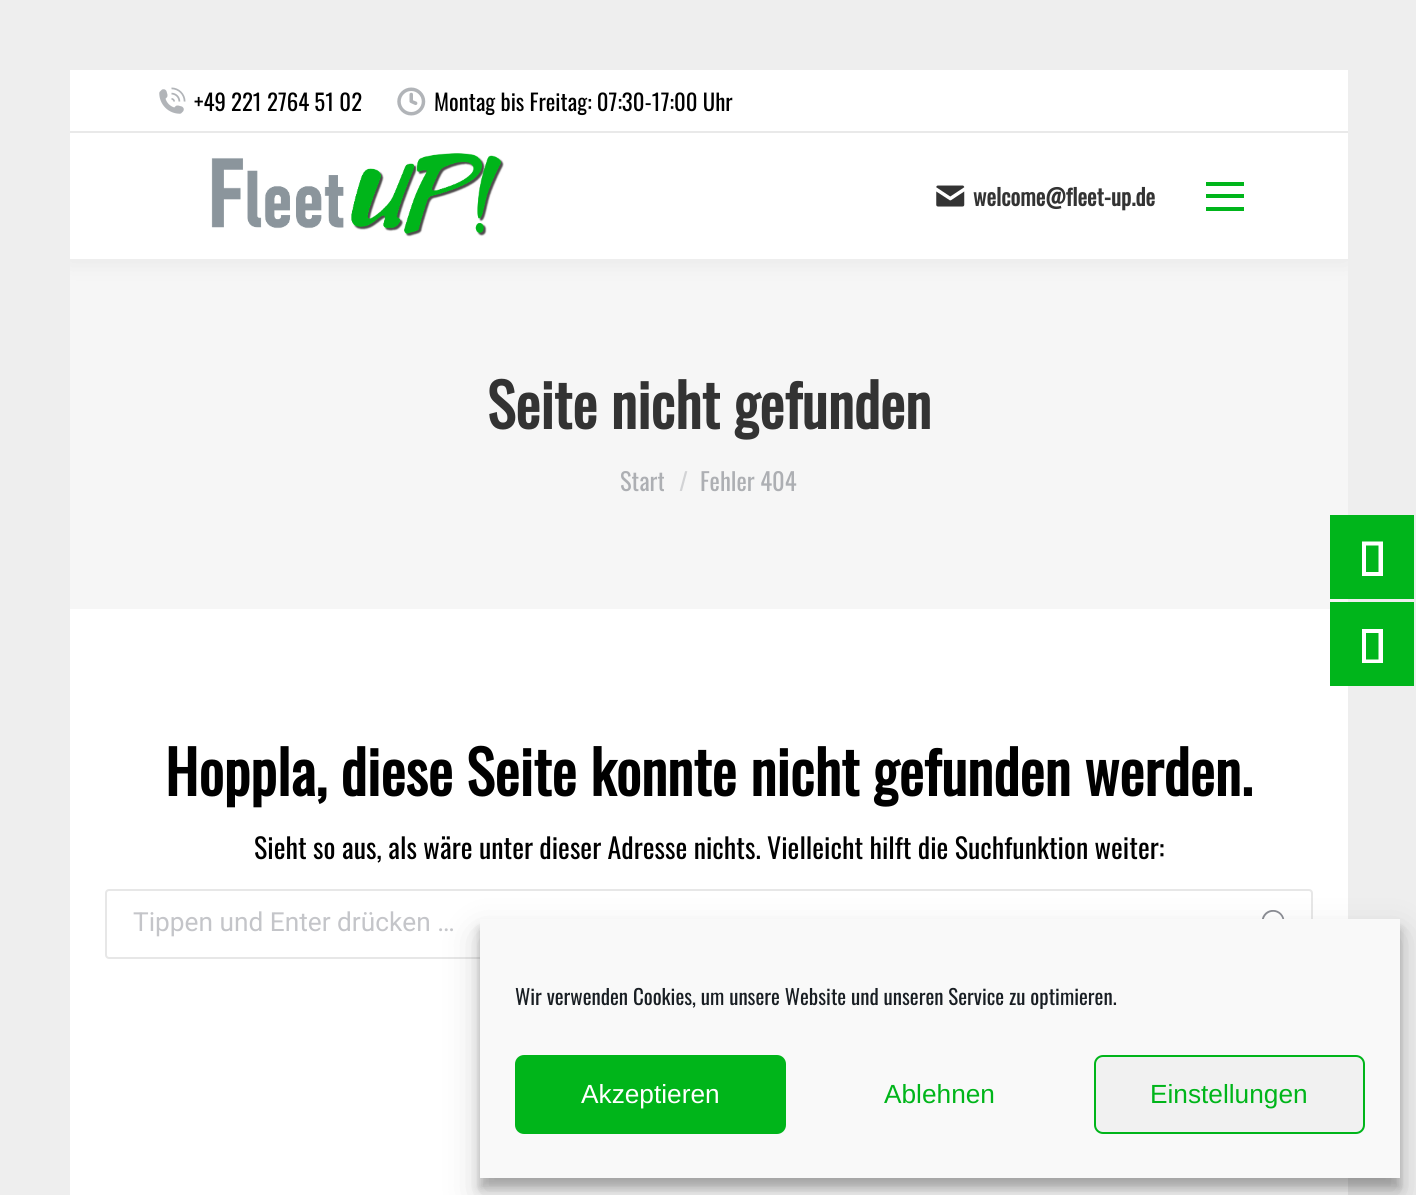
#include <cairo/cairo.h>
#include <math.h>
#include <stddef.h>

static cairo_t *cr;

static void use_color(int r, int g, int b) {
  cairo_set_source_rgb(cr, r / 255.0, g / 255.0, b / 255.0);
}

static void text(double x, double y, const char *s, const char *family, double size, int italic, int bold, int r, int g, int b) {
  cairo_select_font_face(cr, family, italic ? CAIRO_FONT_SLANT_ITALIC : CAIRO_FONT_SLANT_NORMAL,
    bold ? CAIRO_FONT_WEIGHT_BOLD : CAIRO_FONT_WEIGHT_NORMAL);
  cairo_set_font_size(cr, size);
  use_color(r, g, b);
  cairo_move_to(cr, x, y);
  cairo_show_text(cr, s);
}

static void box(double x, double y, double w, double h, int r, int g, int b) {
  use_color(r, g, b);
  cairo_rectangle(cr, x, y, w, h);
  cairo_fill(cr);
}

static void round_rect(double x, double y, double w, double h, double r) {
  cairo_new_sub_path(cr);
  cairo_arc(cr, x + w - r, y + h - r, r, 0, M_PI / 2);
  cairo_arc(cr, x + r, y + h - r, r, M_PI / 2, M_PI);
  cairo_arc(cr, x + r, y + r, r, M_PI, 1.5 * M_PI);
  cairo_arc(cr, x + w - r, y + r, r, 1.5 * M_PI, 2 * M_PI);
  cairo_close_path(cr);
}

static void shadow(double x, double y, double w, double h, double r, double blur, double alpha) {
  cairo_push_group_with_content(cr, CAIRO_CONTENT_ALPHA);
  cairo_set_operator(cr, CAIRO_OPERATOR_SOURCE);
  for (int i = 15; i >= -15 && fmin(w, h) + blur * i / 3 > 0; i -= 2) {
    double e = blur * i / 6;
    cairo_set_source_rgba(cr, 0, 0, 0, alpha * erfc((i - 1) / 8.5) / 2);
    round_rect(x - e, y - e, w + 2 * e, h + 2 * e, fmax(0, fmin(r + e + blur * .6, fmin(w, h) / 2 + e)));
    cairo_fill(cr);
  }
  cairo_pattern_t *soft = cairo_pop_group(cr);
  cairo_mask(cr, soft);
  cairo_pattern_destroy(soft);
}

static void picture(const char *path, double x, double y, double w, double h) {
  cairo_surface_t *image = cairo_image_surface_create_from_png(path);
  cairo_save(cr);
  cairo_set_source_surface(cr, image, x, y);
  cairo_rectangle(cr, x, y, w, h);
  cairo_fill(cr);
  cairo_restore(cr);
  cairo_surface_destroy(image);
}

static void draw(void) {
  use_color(238, 238, 238);
  cairo_paint(cr);
  box(70, 609, 1278, 586, 255, 255, 255);
  box(70, 259, 1278, 350, 246, 246, 246);
  cairo_save(cr);
  cairo_rectangle(cr, 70, 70, 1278, 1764);
  cairo_clip(cr);
  use_color(0, 0, 0);
  shadow(68, 68, 1281, 193, 0, 13, 0.07);
  cairo_restore(cr);
  box(70, 70, 1278, 189, 255, 255, 255);
  picture("img_01.png", 159, 87, 27, 27);
  picture("img_02.png", 397, 87, 29, 29);
  box(70, 131, 1278, 2, 233, 233, 233);
  picture("img_03.png", 211, 153, 293, 84);
  picture("img_04.png", 936, 185, 29, 22);
  box(1206, 182, 38, 4, 0, 181, 27);
  box(1206, 194, 38, 4, 0, 181, 27);
  box(1206, 207, 38, 4, 0, 181, 27);
  round_rect(106, 890, 1206, 68, 3);
  use_color(231, 231, 231);
  cairo_stroke(cr);
  picture("img_05.png", 1262, 910, 23, 9);
  box(1330, 515, 84, 84, 0, 181, 27);
  use_color(255, 255, 255);
  cairo_new_path(cr);
  cairo_move_to(cr, 1362, 541.5);
  cairo_line_to(cr, 1383, 541.5);
  cairo_line_to(cr, 1383, 576);
  cairo_line_to(cr, 1362, 576);
  cairo_close_path(cr);
  cairo_move_to(cr, 1378.5, 572);
  cairo_line_to(cr, 1378.5, 545.5);
  cairo_line_to(cr, 1366, 545.5);
  cairo_line_to(cr, 1366, 572);
  cairo_close_path(cr);
  cairo_fill(cr);
  box(1330, 602, 84, 84, 0, 181, 27);
  use_color(255, 255, 255);
  cairo_new_path(cr);
  cairo_move_to(cr, 1362, 629);
  cairo_line_to(cr, 1383, 629);
  cairo_line_to(cr, 1383, 663);
  cairo_line_to(cr, 1362, 663);
  cairo_close_path(cr);
  cairo_move_to(cr, 1378.5, 659.5);
  cairo_line_to(cr, 1378.5, 633);
  cairo_line_to(cr, 1366, 633);
  cairo_line_to(cr, 1366, 659.5);
  cairo_close_path(cr);
  cairo_fill(cr);
  use_color(0, 0, 0);
  shadow(480, 929, 920, 259, 0, 5, 0.23);
  shadow(480, 936, 920, 259, 0, 17.5, 0.19);
  box(480, 919, 920, 259, 249, 249, 249);
  use_color(0, 181, 26);
  round_rect(516, 1056, 269, 77, 8);
  cairo_fill_preserve(cr);
  cairo_stroke(cr);
  use_color(241, 241, 241);
  round_rect(1095, 1056, 269, 77, 8);
  cairo_fill_preserve(cr);
  use_color(0, 181, 26);
  cairo_stroke(cr);
  text(194, 111, "+49 221 2764 51 02", "Oswald", 22.75, 0, 0, 0, 0, 0);
  text(434, 111, "Montag bis Freitag: 07:30-17:00 Uhr", "Oswald", 22.75, 0, 0, 0, 0, 0);
  text(973, 206, "welcome@fleet-up.de", "Oswald", 22.75, 0, 1, 51, 51, 51);
  text(487, 429, "Seite nicht gefunden", "Oswald", 59.5, 0, 1, 51, 51, 51);
  text(620, 491, "Start", "Oswald", 24.5, 0, 0, 173, 175, 179);
  text(679, 491, "/", "Oswald", 24.5, 0, 0, 210, 211, 213);
  text(700, 491, "Fehler 404", "Oswald", 24.5, 0, 0, 173, 175, 179);
  text(165, 796, "Hoppla, diese Seite konnte nicht gefunden werden.", "Oswald", 59.5, 0, 1, 0, 0, 0);
  text(254, 859, "Sieht so aus, als wäre unter dieser Adresse nichts. Vielleicht hilft die Suchfunktion weiter:", "Oswald", 28, 0, 0, 0, 0, 0);
  text(133, 931, "Tippen und Enter drücken …", "Roboto", 26.25, 0, 0, 196, 197, 201);
  text(515, 1005, "Wir verwenden Cookies, um unsere Website und unseren Service zu optimieren.", "Oswald", 21, 0, 0, 25, 30, 35);
  text(581, 1103, "Akzeptieren", "Liberation Sans", 26.25, 0, 0, 255, 255, 255);
  text(884, 1103, "Ablehnen", "Liberation Sans", 26.25, 0, 0, 0, 181, 26);
  text(1150, 1103, "Einstellungen", "Liberation Sans", 26.25, 0, 0, 0, 181, 26);
}

int main(void) {
  cairo_surface_t *surface = cairo_image_surface_create(CAIRO_FORMAT_RGB24, 1416, 1195);
  cr = cairo_create(surface);
  cairo_font_options_t *options = cairo_font_options_create();
  cairo_font_options_set_hint_metrics(options, CAIRO_HINT_METRICS_OFF);
  cairo_font_options_set_hint_style(options, CAIRO_HINT_STYLE_NONE);
  cairo_set_font_options(cr, options);
  cairo_set_miter_limit(cr, 4);
  draw();
  cairo_surface_write_to_png(surface, "out.png");
  cairo_font_options_destroy(options);
  cairo_destroy(cr);
  cairo_surface_destroy(surface);
  return 0;
}
